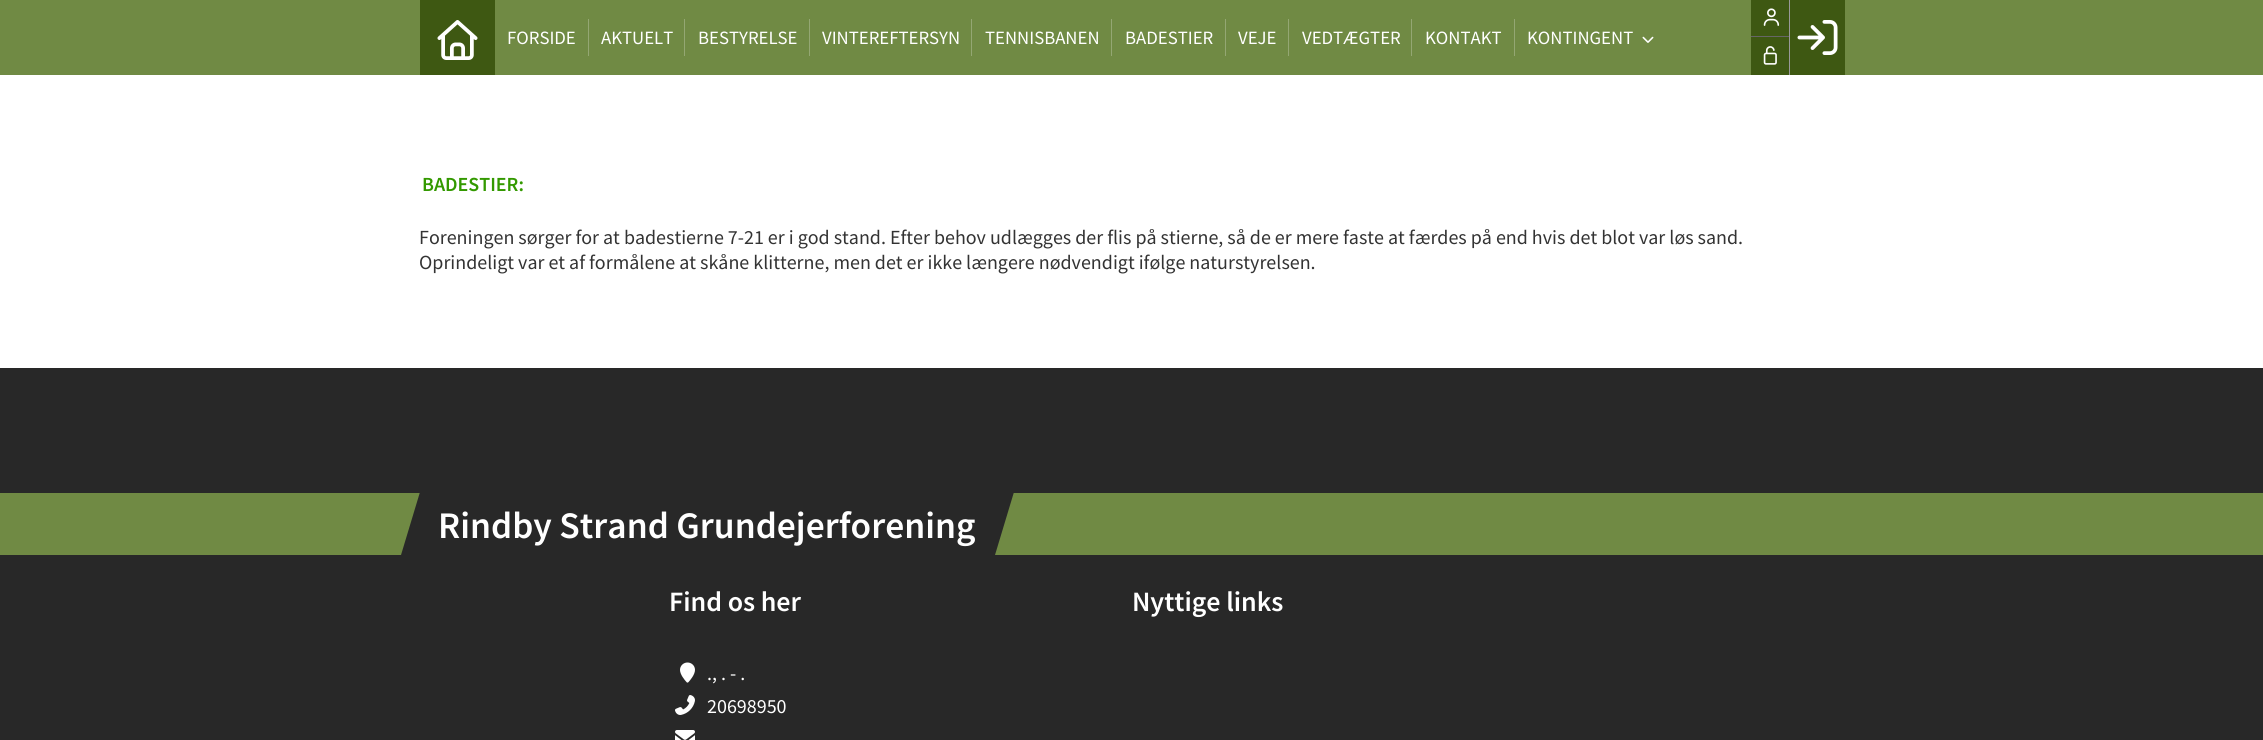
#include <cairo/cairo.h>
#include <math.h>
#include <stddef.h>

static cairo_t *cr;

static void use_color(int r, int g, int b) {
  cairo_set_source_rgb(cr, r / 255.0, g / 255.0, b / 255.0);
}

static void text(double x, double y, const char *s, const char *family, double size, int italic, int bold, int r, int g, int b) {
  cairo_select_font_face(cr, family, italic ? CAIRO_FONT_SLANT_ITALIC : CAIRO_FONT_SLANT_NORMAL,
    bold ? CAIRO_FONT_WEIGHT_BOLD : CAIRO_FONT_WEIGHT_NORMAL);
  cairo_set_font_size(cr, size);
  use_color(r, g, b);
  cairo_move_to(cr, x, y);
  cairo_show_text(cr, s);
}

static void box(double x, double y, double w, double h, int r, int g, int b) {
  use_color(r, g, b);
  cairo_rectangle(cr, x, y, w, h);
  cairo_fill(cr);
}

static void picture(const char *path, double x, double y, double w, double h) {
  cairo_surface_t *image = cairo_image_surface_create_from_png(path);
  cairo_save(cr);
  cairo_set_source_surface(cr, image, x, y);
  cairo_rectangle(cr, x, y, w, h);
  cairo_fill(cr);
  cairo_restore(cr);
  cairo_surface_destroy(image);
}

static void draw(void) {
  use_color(255, 255, 255);
  cairo_paint(cr);
  box(0, 0, 2263, 75, 112, 138, 68);
  box(420, 0, 75, 75, 62, 88, 18);
  picture("img_01.png", 437, 20, 41, 40);
  box(588, 19, 1, 37, 148, 167, 115);
  box(684, 19, 1, 37, 148, 167, 115);
  box(809, 19, 1, 37, 148, 167, 115);
  box(971, 19, 1, 37, 148, 167, 115);
  box(1111, 19, 1, 37, 148, 167, 115);
  box(1225, 19, 1, 37, 148, 167, 115);
  box(1288, 19, 1, 37, 148, 167, 115);
  box(1411, 19, 1, 37, 148, 167, 115);
  box(1514, 19, 1, 37, 148, 167, 115);
  picture("img_02.png", 1642, 36, 12, 7);
  box(1751, 0, 38, 75, 62, 88, 18);
  box(1751, 36, 38, 1, 102, 102, 102);
  picture("img_03.png", 1763, 8, 17, 18);
  picture("img_04.png", 1763, 46, 14, 19);
  box(1790, 0, 55, 75, 62, 88, 18);
  box(1789, 0, 1, 75, 153, 153, 153);
  picture("img_05.png", 1797, 20, 41, 35);
  box(0, 368, 2263, 372, 40, 40, 40);
  box(0, 493, 2263, 62, 112, 138, 68);
  box(420, 493, 575, 62, 40, 40, 40);
  cairo_new_path(cr);
  cairo_move_to(cr, 420, 492);
  cairo_line_to(cr, 420, 555);
  cairo_line_to(cr, 401, 555);
  cairo_close_path(cr);
  cairo_fill(cr);
  cairo_new_path(cr);
  cairo_move_to(cr, 995, 555);
  cairo_line_to(cr, 995, 492);
  cairo_line_to(cr, 1014, 492);
  cairo_close_path(cr);
  cairo_fill(cr);
  picture("img_06.png", 680, 662, 15, 21);
  picture("img_07.png", 675, 695, 20, 20);
  picture("img_08.png", 675, 730, 20, 10);
  text(507, 44, "FORSIDE", "Source Sans Pro", 18.75, 0, 0, 255, 255, 255);
  text(601, 44, "AKTUELT", "Source Sans Pro", 18.75, 0, 0, 255, 255, 255);
  text(698, 44, "BESTYRELSE", "Source Sans Pro", 18.75, 0, 0, 255, 255, 255);
  text(822, 44, "VINTEREFTERSYN", "Source Sans Pro", 18.75, 0, 0, 255, 255, 255);
  text(985, 44, "TENNISBANEN", "Source Sans Pro", 18.75, 0, 0, 255, 255, 255);
  text(1125, 44, "BADESTIER", "Source Sans Pro", 18.75, 0, 0, 255, 255, 255);
  text(1238, 44, "VEJE", "Source Sans Pro", 18.75, 0, 0, 255, 255, 255);
  text(1302, 44, "VEDTÆGTER", "Source Sans Pro", 18.75, 0, 0, 255, 255, 255);
  text(1425, 44, "KONTAKT", "Source Sans Pro", 18.75, 0, 0, 255, 255, 255);
  text(1527, 44, "KONTINGENT", "Source Sans Pro", 18.75, 0, 0, 255, 255, 255);
  text(422, 191, "BADESTIER:", "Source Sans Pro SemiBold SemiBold", 20, 0, 0, 51, 153, 0);
  text(419, 244, "Foreningen sørger for at badestierne 7-21 er i god stand. Efter behov udlægges der flis på stierne, så de er mere faste at færdes på end hvis det blot var løs sand.", "Source Sans Pro", 20, 0, 0, 51, 51, 51);
  text(419, 269, "Oprindeligt var et af formålene at skåne klitterne, men det er ikke længere nødvendigt ifølge naturstyrelsen.", "Source Sans Pro", 20, 0, 0, 51, 51, 51);
  text(438, 538, "Rindby Strand Grundejerforening", "Source Sans Pro SemiBold SemiBold", 37.5, 0, 0, 255, 255, 255);
  text(669, 611, "Find os her", "Source Sans Pro SemiBold SemiBold", 28, 0, 0, 255, 255, 255);
  text(707, 680, "., . - .", "Source Sans Pro", 20, 0, 0, 255, 255, 255);
  text(707, 713, "20698950", "Source Sans Pro", 20, 0, 0, 255, 255, 255);
  text(1132, 611, "Nyttige links", "Source Sans Pro SemiBold SemiBold", 28, 0, 0, 255, 255, 255);
}

int main(void) {
  cairo_surface_t *surface = cairo_image_surface_create(CAIRO_FORMAT_RGB24, 2263, 740);
  cr = cairo_create(surface);
  cairo_font_options_t *options = cairo_font_options_create();
  cairo_font_options_set_hint_metrics(options, CAIRO_HINT_METRICS_OFF);
  cairo_font_options_set_hint_style(options, CAIRO_HINT_STYLE_NONE);
  cairo_set_font_options(cr, options);
  cairo_set_miter_limit(cr, 4);
  draw();
  cairo_surface_write_to_png(surface, "out.png");
  cairo_font_options_destroy(options);
  cairo_destroy(cr);
  cairo_surface_destroy(surface);
  return 0;
}
